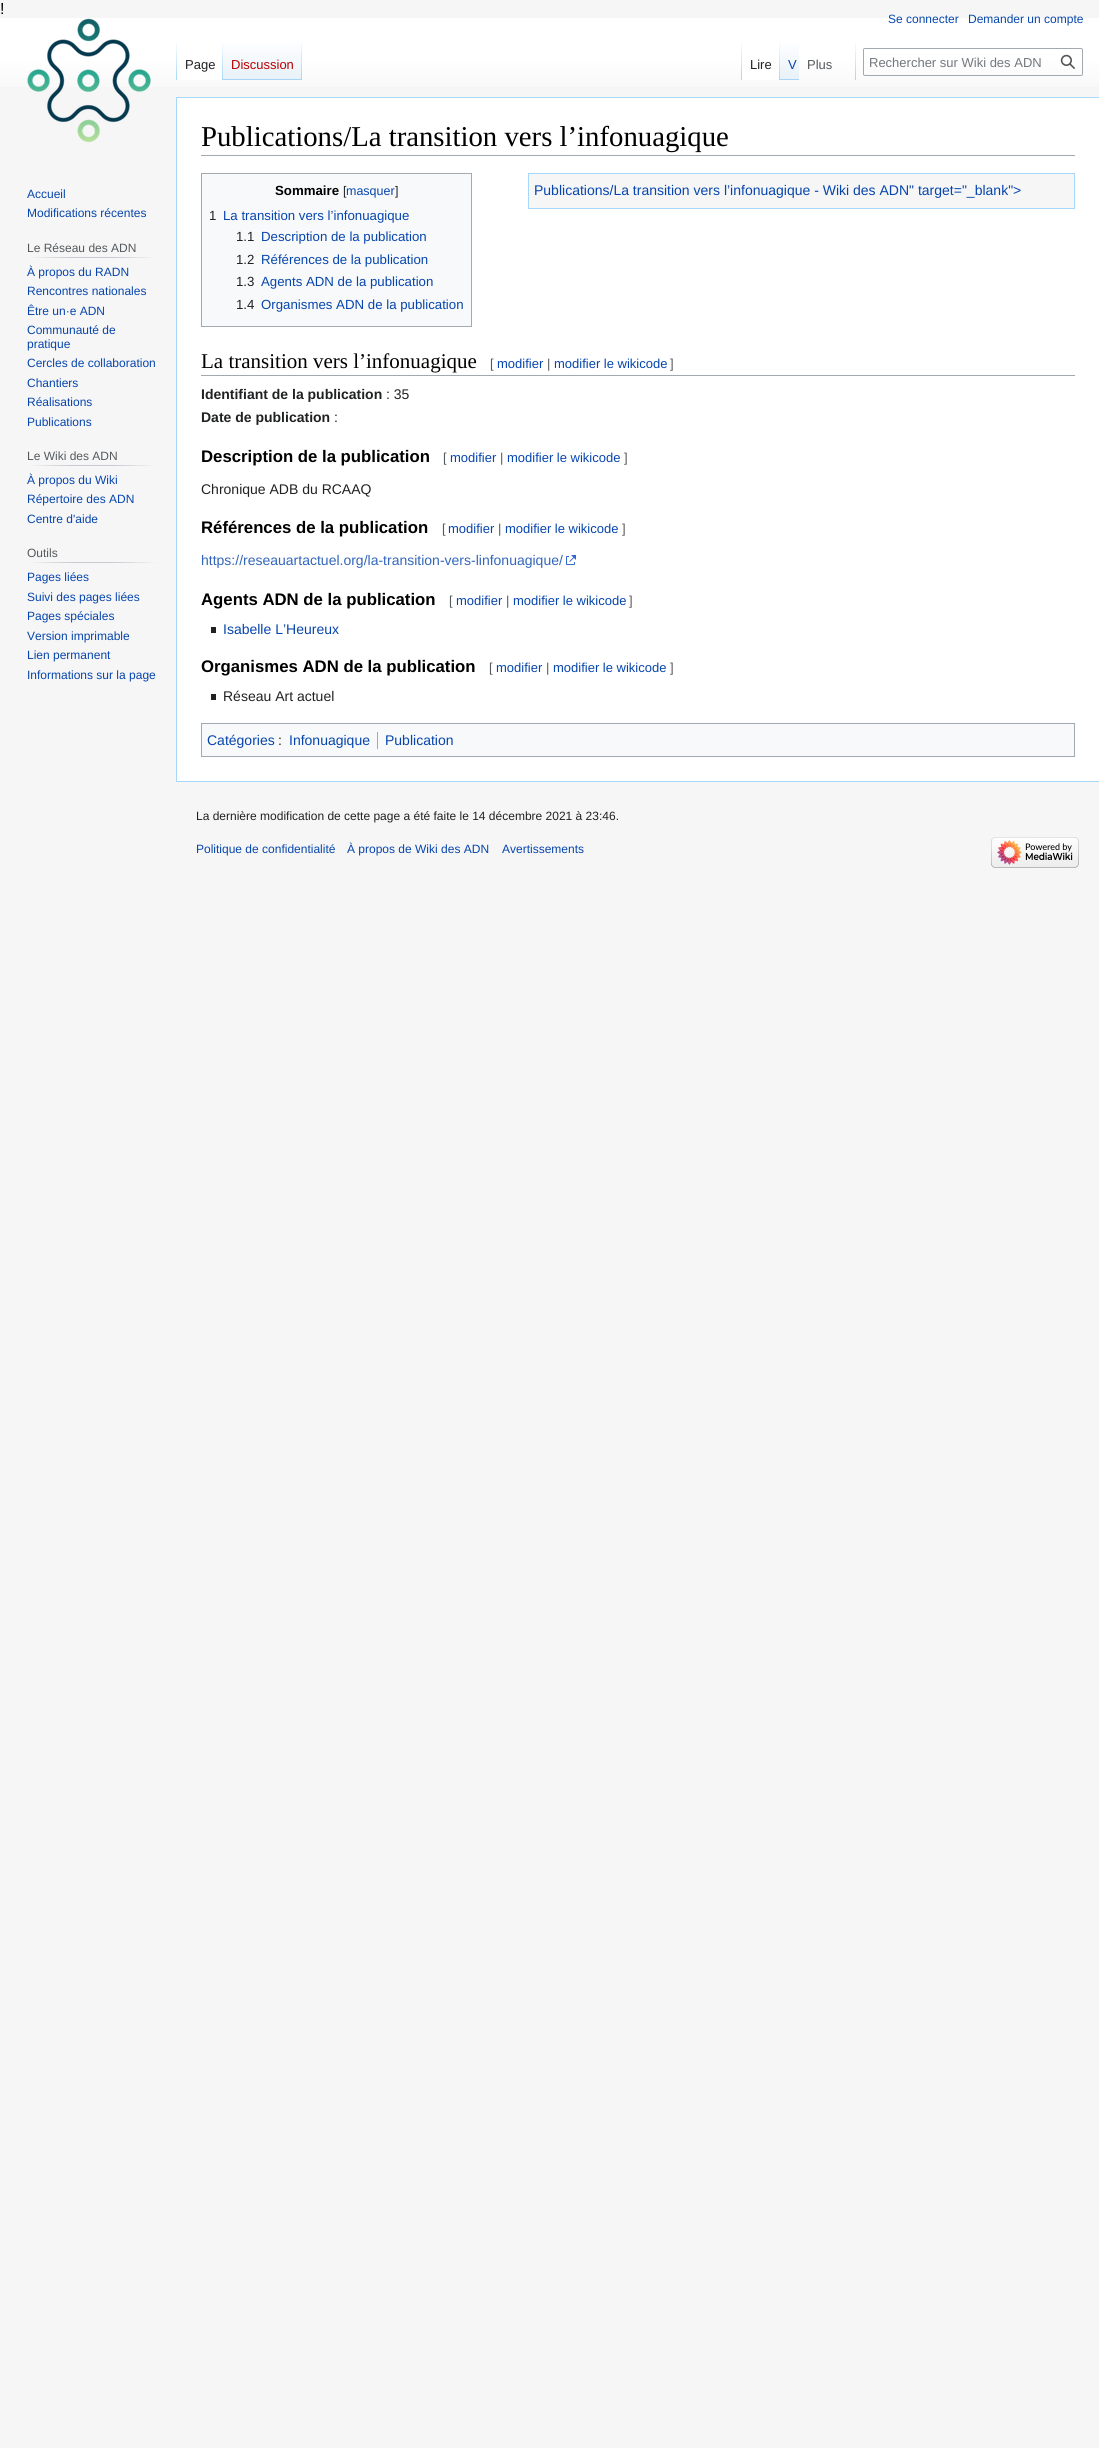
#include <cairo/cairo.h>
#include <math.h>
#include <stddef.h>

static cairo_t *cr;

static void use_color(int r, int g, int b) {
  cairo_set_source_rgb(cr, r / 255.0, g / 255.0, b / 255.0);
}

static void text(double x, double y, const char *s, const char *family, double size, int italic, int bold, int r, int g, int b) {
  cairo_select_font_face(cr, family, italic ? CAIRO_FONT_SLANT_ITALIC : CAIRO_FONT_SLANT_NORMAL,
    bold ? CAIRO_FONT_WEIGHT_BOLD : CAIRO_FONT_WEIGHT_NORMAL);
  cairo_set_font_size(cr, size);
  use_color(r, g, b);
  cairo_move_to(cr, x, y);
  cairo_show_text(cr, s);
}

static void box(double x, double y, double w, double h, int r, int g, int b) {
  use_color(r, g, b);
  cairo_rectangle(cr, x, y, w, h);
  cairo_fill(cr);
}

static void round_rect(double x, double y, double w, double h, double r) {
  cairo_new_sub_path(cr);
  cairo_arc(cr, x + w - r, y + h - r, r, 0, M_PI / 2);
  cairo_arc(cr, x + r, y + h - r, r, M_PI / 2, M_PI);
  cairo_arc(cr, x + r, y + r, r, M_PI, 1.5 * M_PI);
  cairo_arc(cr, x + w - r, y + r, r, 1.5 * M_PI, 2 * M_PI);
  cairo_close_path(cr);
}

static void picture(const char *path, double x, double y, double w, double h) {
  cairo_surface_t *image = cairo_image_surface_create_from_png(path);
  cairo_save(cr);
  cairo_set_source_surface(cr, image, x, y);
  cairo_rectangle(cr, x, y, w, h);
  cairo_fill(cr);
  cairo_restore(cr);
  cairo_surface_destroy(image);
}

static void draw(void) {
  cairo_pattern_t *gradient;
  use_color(246, 246, 246);
  cairo_paint(cr);
  gradient = cairo_pattern_create_linear(550, 18, 550, 98);
  cairo_pattern_add_color_stop_rgba(gradient, 0.5, 1, 1, 1, 1);
  cairo_pattern_add_color_stop_rgba(gradient, 1, 0.965, 0.965, 0.965, 1);
  cairo_set_source(cr, gradient);
  cairo_pattern_destroy(gradient);
  cairo_rectangle(cr, 0, 18, 1099, 69);
  cairo_fill(cr);
  gradient = cairo_pattern_create_linear(177, 40, 177, 80);
  cairo_pattern_add_color_stop_rgba(gradient, 0, 0.655, 0.843, 0.976, 0);
  cairo_pattern_add_color_stop_rgba(gradient, 1, 0.655, 0.843, 0.976, 1);
  cairo_set_source(cr, gradient);
  cairo_pattern_destroy(gradient);
  cairo_rectangle(cr, 176, 40, 1, 40);
  cairo_fill(cr);
  box(177, 69, 45, 11, 255, 255, 255);
  gradient = cairo_pattern_create_linear(223, 40, 223, 80);
  cairo_pattern_add_color_stop_rgba(gradient, 0, 1, 1, 1, 1);
  cairo_pattern_add_color_stop_rgba(gradient, 1, 0.655, 0.843, 0.976, 1);
  cairo_set_source(cr, gradient);
  cairo_pattern_destroy(gradient);
  cairo_rectangle(cr, 222, 40, 1, 40);
  cairo_fill(cr);
  gradient = cairo_pattern_create_linear(263, 80, 263, 40);
  cairo_pattern_add_color_stop_rgba(gradient, 0, 0.467, 0.757, 0.965, 1);
  cairo_pattern_add_color_stop_rgba(gradient, 0.03, 0.91, 0.949, 0.973, 1);
  cairo_pattern_add_color_stop_rgba(gradient, 1, 1, 1, 1, 1);
  cairo_set_source(cr, gradient);
  cairo_pattern_destroy(gradient);
  cairo_rectangle(cr, 223, 44, 79, 36);
  cairo_fill(cr);
  gradient = cairo_pattern_create_linear(302, 40, 302, 80);
  cairo_pattern_add_color_stop_rgba(gradient, 0, 0.655, 0.843, 0.976, 0);
  cairo_pattern_add_color_stop_rgba(gradient, 1, 0.655, 0.843, 0.976, 1);
  cairo_set_source(cr, gradient);
  cairo_pattern_destroy(gradient);
  cairo_rectangle(cr, 301, 40, 1, 40);
  cairo_fill(cr);
  gradient = cairo_pattern_create_linear(742, 40, 742, 80);
  cairo_pattern_add_color_stop_rgba(gradient, 0, 0.655, 0.843, 0.976, 0);
  cairo_pattern_add_color_stop_rgba(gradient, 1, 0.655, 0.843, 0.976, 1);
  cairo_set_source(cr, gradient);
  cairo_pattern_destroy(gradient);
  cairo_rectangle(cr, 741, 40, 1, 40);
  cairo_fill(cr);
  box(742, 69, 37, 11, 255, 255, 255);
  gradient = cairo_pattern_create_linear(780, 40, 780, 80);
  cairo_pattern_add_color_stop_rgba(gradient, 0, 1, 1, 1, 1);
  cairo_pattern_add_color_stop_rgba(gradient, 1, 0.655, 0.843, 0.976, 1);
  cairo_set_source(cr, gradient);
  cairo_pattern_destroy(gradient);
  cairo_rectangle(cr, 779, 40, 1, 40);
  cairo_fill(cr);
  gradient = cairo_pattern_create_linear(790, 80, 790, 40);
  cairo_pattern_add_color_stop_rgba(gradient, 0, 0.467, 0.757, 0.965, 1);
  cairo_pattern_add_color_stop_rgba(gradient, 0.03, 0.91, 0.949, 0.973, 1);
  cairo_pattern_add_color_stop_rgba(gradient, 1, 1, 1, 1, 1);
  cairo_set_source(cr, gradient);
  cairo_pattern_destroy(gradient);
  cairo_rectangle(cr, 780, 44, 19, 36);
  cairo_fill(cr);
  gradient = cairo_pattern_create_linear(856, 40, 856, 80);
  cairo_pattern_add_color_stop_rgba(gradient, 0, 0.655, 0.843, 0.976, 0);
  cairo_pattern_add_color_stop_rgba(gradient, 1, 0.655, 0.843, 0.976, 1);
  cairo_set_source(cr, gradient);
  cairo_pattern_destroy(gradient);
  cairo_rectangle(cr, 855, 40, 1, 40);
  cairo_fill(cr);
  round_rect(863.5, 48.5, 219, 27, 1.5);
  use_color(162, 169, 177);
  cairo_set_line_width(cr, 1);
  cairo_stroke(cr);
  picture("img_01.png", 1060, 54, 15, 15);
  picture("img_02.png", 27, 18, 124, 125);
  gradient = cairo_pattern_create_linear(27, 258, 158, 258);
  cairo_pattern_add_color_stop_rgba(gradient, 0, 0.965, 0.965, 0.965, 1);
  cairo_pattern_add_color_stop_rgba(gradient, 0.33, 0.784, 0.8, 0.82, 1);
  cairo_pattern_add_color_stop_rgba(gradient, 0.66, 0.784, 0.8, 0.82, 1);
  cairo_pattern_add_color_stop_rgba(gradient, 1, 0.965, 0.965, 0.965, 1);
  cairo_set_source(cr, gradient);
  cairo_pattern_destroy(gradient);
  cairo_rectangle(cr, 27, 257, 131, 1);
  cairo_fill(cr);
  gradient = cairo_pattern_create_linear(27, 466, 158, 466);
  cairo_pattern_add_color_stop_rgba(gradient, 0, 0.965, 0.965, 0.965, 1);
  cairo_pattern_add_color_stop_rgba(gradient, 0.33, 0.784, 0.8, 0.82, 1);
  cairo_pattern_add_color_stop_rgba(gradient, 0.66, 0.784, 0.8, 0.82, 1);
  cairo_pattern_add_color_stop_rgba(gradient, 1, 0.965, 0.965, 0.965, 1);
  cairo_set_source(cr, gradient);
  cairo_pattern_destroy(gradient);
  cairo_rectangle(cr, 27, 465, 131, 1);
  cairo_fill(cr);
  gradient = cairo_pattern_create_linear(27, 563, 158, 563);
  cairo_pattern_add_color_stop_rgba(gradient, 0, 0.965, 0.965, 0.965, 1);
  cairo_pattern_add_color_stop_rgba(gradient, 0.33, 0.784, 0.8, 0.82, 1);
  cairo_pattern_add_color_stop_rgba(gradient, 0.66, 0.784, 0.8, 0.82, 1);
  cairo_pattern_add_color_stop_rgba(gradient, 1, 0.965, 0.965, 0.965, 1);
  cairo_set_source(cr, gradient);
  cairo_pattern_destroy(gradient);
  cairo_rectangle(cr, 27, 562, 131, 1);
  cairo_fill(cr);
  box(177, 98, 922, 683, 255, 255, 255);
  box(176, 97, 923, 1, 167, 215, 249);
  box(176, 781, 923, 1, 167, 215, 249);
  box(176, 97, 1, 685, 167, 215, 249);
  box(201, 155, 874, 1, 162, 169, 177);
  use_color(248, 249, 250);
  cairo_rectangle(cr, 201.5, 173.5, 270, 153);
  cairo_fill_preserve(cr);
  use_color(162, 169, 177);
  cairo_stroke(cr);
  box(201, 375, 874, 1, 162, 169, 177);
  picture("img_03.png", 566, 555, 10, 10);
  box(211, 627, 5, 6, 32, 33, 34);
  box(211, 694, 5, 6, 32, 33, 34);
  use_color(246, 246, 246);
  cairo_rectangle(cr, 528.5, 173.5, 546, 35);
  cairo_fill_preserve(cr);
  use_color(167, 215, 249);
  cairo_stroke(cr);
  use_color(248, 249, 250);
  cairo_rectangle(cr, 201.5, 723.5, 873, 33);
  cairo_fill_preserve(cr);
  use_color(162, 169, 177);
  cairo_stroke(cr);
  box(377, 732, 1, 17, 162, 169, 177);
  picture("img_04.png", 991, 837, 88, 31);
  text(0, 14, "!", "Liberation Sans", 16, 0, 0, 0, 0, 0);
  text(888, 23, "Se connecter", "Liberation Sans", 12, 0, 0, 6, 69, 173);
  text(968, 23, "Demander un compte", "Liberation Sans", 12, 0, 0, 6, 69, 173);
  text(185, 69, "Page", "Liberation Sans", 13, 0, 0, 32, 33, 34);
  text(231, 69, "Discussion", "Liberation Sans", 13, 0, 0, 186, 0, 0);
  text(750, 69, "Lire", "Liberation Sans", 13, 0, 0, 32, 33, 34);
  text(788, 69, "V", "Liberation Sans", 13, 0, 0, 6, 69, 173);
  text(807, 69, "Plus", "Liberation Sans", 13, 0, 0, 84, 89, 93);
  text(869, 67, "Rechercher sur Wiki des ADN", "Liberation Sans", 13, 0, 0, 114, 119, 125);
  text(27, 198, "Accueil", "Liberation Sans", 12, 0, 0, 6, 69, 173);
  text(27, 217, "Modifications récentes", "Liberation Sans", 12, 0, 0, 6, 69, 173);
  text(27, 252, "Le Réseau des ADN", "Liberation Sans", 12, 0, 0, 84, 89, 93);
  text(27, 276, "À propos du RADN", "Liberation Sans", 12, 0, 0, 6, 69, 173);
  text(27, 295, "Rencontres nationales", "Liberation Sans", 12, 0, 0, 6, 69, 173);
  text(27, 315, "Être un·e ADN", "Liberation Sans", 12, 0, 0, 6, 69, 173);
  text(27, 334, "Communauté de", "Liberation Sans", 12, 0, 0, 6, 69, 173);
  text(27, 348, "pratique", "Liberation Sans", 12, 0, 0, 6, 69, 173);
  text(27, 367, "Cercles de collaboration", "Liberation Sans", 12, 0, 0, 6, 69, 173);
  text(27, 387, "Chantiers", "Liberation Sans", 12, 0, 0, 6, 69, 173);
  text(27, 406, "Réalisations", "Liberation Sans", 12, 0, 0, 6, 69, 173);
  text(27, 426, "Publications", "Liberation Sans", 12, 0, 0, 6, 69, 173);
  text(27, 460, "Le Wiki des ADN", "Liberation Sans", 12, 0, 0, 84, 89, 93);
  text(27, 484, "À propos du Wiki", "Liberation Sans", 12, 0, 0, 6, 69, 173);
  text(27, 503, "Répertoire des ADN", "Liberation Sans", 12, 0, 0, 6, 69, 173);
  text(27, 523, "Centre d'aide", "Liberation Sans", 12, 0, 0, 6, 69, 173);
  text(27, 557, "Outils", "Liberation Sans", 12, 0, 0, 84, 89, 93);
  text(27, 581, "Pages liées", "Liberation Sans", 12, 0, 0, 6, 69, 173);
  text(27, 601, "Suivi des pages liées", "Liberation Sans", 12, 0, 0, 6, 69, 173);
  text(27, 620, "Pages spéciales", "Liberation Sans", 12, 0, 0, 6, 69, 173);
  text(27, 640, "Version imprimable", "Liberation Sans", 12, 0, 0, 6, 69, 173);
  text(27, 659, "Lien permanent", "Liberation Sans", 12, 0, 0, 6, 69, 173);
  text(27, 679, "Informations sur la page", "Liberation Sans", 12, 0, 0, 6, 69, 173);
  text(201, 146, "Publications/La transition vers l’infonuagique", "Liberation Serif", 28.75, 0, 0, 0, 0, 0);
  text(275, 195, "Sommaire", "Liberation Sans", 13.25, 0, 1, 0, 0, 0);
  text(343, 195, "[", "Liberation Sans", 12.5, 0, 0, 32, 33, 34);
  text(346, 195, "masquer", "Liberation Sans", 12.5, 0, 0, 6, 69, 173);
  text(395, 195, "]", "Liberation Sans", 12.5, 0, 0, 32, 33, 34);
  text(209, 220, "1", "Liberation Sans", 13.25, 0, 0, 32, 33, 34);
  text(223, 220, "La transition vers l’infonuagique", "Liberation Sans", 13.25, 0, 0, 6, 69, 173);
  text(236, 241, "1.1", "Liberation Sans", 13.25, 0, 0, 32, 33, 34);
  text(261, 241, "Description de la publication", "Liberation Sans", 13.25, 0, 0, 6, 69, 173);
  text(236, 264, "1.2", "Liberation Sans", 13.25, 0, 0, 32, 33, 34);
  text(261, 264, "Références de la publication", "Liberation Sans", 13.25, 0, 0, 6, 69, 173);
  text(236, 286, "1.3", "Liberation Sans", 13.25, 0, 0, 32, 33, 34);
  text(261, 286, "Agents ADN de la publication", "Liberation Sans", 13.25, 0, 0, 6, 69, 173);
  text(236, 309, "1.4", "Liberation Sans", 13.25, 0, 0, 32, 33, 34);
  text(261, 309, "Organismes ADN de la publication", "Liberation Sans", 13.25, 0, 0, 6, 69, 173);
  text(201, 368, "La transition vers l’infonuagique", "Liberation Serif", 21, 0, 0, 0, 0, 0);
  text(490, 368, "[", "Liberation Sans", 13, 0, 0, 84, 89, 93);
  text(497, 368, "modifier", "Liberation Sans", 13, 0, 0, 6, 69, 173);
  text(547, 368, "|", "Liberation Sans", 13, 0, 0, 84, 89, 93);
  text(554, 368, "modifier le wikicode", "Liberation Sans", 13, 0, 0, 6, 69, 173);
  text(670, 368, "]", "Liberation Sans", 13, 0, 0, 84, 89, 93);
  text(201, 399, "Identifiant de la publication", "Liberation Sans", 14, 0, 1, 32, 33, 34);
  text(386, 399, ": 35", "Liberation Sans", 14, 0, 0, 32, 33, 34);
  text(201, 422, "Date de publication", "Liberation Sans", 14, 0, 1, 32, 33, 34);
  text(334, 422, ":", "Liberation Sans", 14, 0, 0, 32, 33, 34);
  text(201, 462, "Description de la publication", "Liberation Sans", 16.75, 0, 1, 0, 0, 0);
  text(443, 462, "[", "Liberation Sans", 13, 0, 0, 84, 89, 93);
  text(450, 462, "modifier", "Liberation Sans", 13, 0, 0, 6, 69, 173);
  text(500, 462, "|", "Liberation Sans", 13, 0, 0, 84, 89, 93);
  text(507, 462, "modifier le wikicode", "Liberation Sans", 13, 0, 0, 6, 69, 173);
  text(624, 462, "]", "Liberation Sans", 13, 0, 0, 84, 89, 93);
  text(201, 494, "Chronique ADB du RCAAQ", "Liberation Sans", 14, 0, 0, 32, 33, 34);
  text(201, 533, "Références de la publication", "Liberation Sans", 16.75, 0, 1, 0, 0, 0);
  text(442, 533, "[", "Liberation Sans", 13, 0, 0, 84, 89, 93);
  text(448, 533, "modifier", "Liberation Sans", 13, 0, 0, 6, 69, 173);
  text(498, 533, "|", "Liberation Sans", 13, 0, 0, 84, 89, 93);
  text(505, 533, "modifier le wikicode", "Liberation Sans", 13, 0, 0, 6, 69, 173);
  text(622, 533, "]", "Liberation Sans", 13, 0, 0, 84, 89, 93);
  text(201, 565, "https://reseauartactuel.org/la-transition-vers-linfonuagique/", "Liberation Sans", 14, 0, 0, 51, 102, 187);
  text(201, 605, "Agents ADN de la publication", "Liberation Sans", 16.75, 0, 1, 0, 0, 0);
  text(449, 605, "[", "Liberation Sans", 13, 0, 0, 84, 89, 93);
  text(456, 605, "modifier", "Liberation Sans", 13, 0, 0, 6, 69, 173);
  text(506, 605, "|", "Liberation Sans", 13, 0, 0, 84, 89, 93);
  text(513, 605, "modifier le wikicode", "Liberation Sans", 13, 0, 0, 6, 69, 173);
  text(629, 605, "]", "Liberation Sans", 13, 0, 0, 84, 89, 93);
  text(223, 634, "Isabelle L’Heureux", "Liberation Sans", 14, 0, 0, 6, 69, 173);
  text(201, 672, "Organismes ADN de la publication", "Liberation Sans", 16.75, 0, 1, 0, 0, 0);
  text(489, 672, "[", "Liberation Sans", 13, 0, 0, 84, 89, 93);
  text(496, 672, "modifier", "Liberation Sans", 13, 0, 0, 6, 69, 173);
  text(546, 672, "|", "Liberation Sans", 13, 0, 0, 84, 89, 93);
  text(553, 672, "modifier le wikicode", "Liberation Sans", 13, 0, 0, 6, 69, 173);
  text(670, 672, "]", "Liberation Sans", 13, 0, 0, 84, 89, 93);
  text(223, 701, "Réseau Art actuel", "Liberation Sans", 14, 0, 0, 32, 33, 34);
  text(534, 195, "Publications/La transition vers l’infonuagique - Wiki des ADN\" target=\"_blank\">", "Liberation Sans", 14, 0, 0, 6, 69, 173);
  text(207, 745, "Catégories", "Liberation Sans", 14, 0, 0, 6, 69, 173);
  text(278, 745, ":", "Liberation Sans", 14, 0, 0, 32, 33, 34);
  text(289, 745, "Infonuagique", "Liberation Sans", 14, 0, 0, 6, 69, 173);
  text(385, 745, "Publication", "Liberation Sans", 14, 0, 0, 6, 69, 173);
  text(196, 820, "La dernière modification de cette page a été faite le 14 décembre 2021 à 23:46.", "Liberation Sans", 12, 0, 0, 32, 33, 34);
  text(196, 853, "Politique de confidentialité", "Liberation Sans", 12, 0, 0, 6, 69, 173);
  text(347, 853, "À propos de Wiki des ADN", "Liberation Sans", 12, 0, 0, 6, 69, 173);
  text(502, 853, "Avertissements", "Liberation Sans", 12, 0, 0, 6, 69, 173);
}

int main(void) {
  cairo_surface_t *surface = cairo_image_surface_create(CAIRO_FORMAT_RGB24, 1099, 2448);
  cr = cairo_create(surface);
  cairo_font_options_t *options = cairo_font_options_create();
  cairo_font_options_set_hint_metrics(options, CAIRO_HINT_METRICS_OFF);
  cairo_font_options_set_hint_style(options, CAIRO_HINT_STYLE_NONE);
  cairo_set_font_options(cr, options);
  cairo_set_miter_limit(cr, 4);
  draw();
  cairo_surface_write_to_png(surface, "out.png");
  cairo_font_options_destroy(options);
  cairo_destroy(cr);
  cairo_surface_destroy(surface);
  return 0;
}
